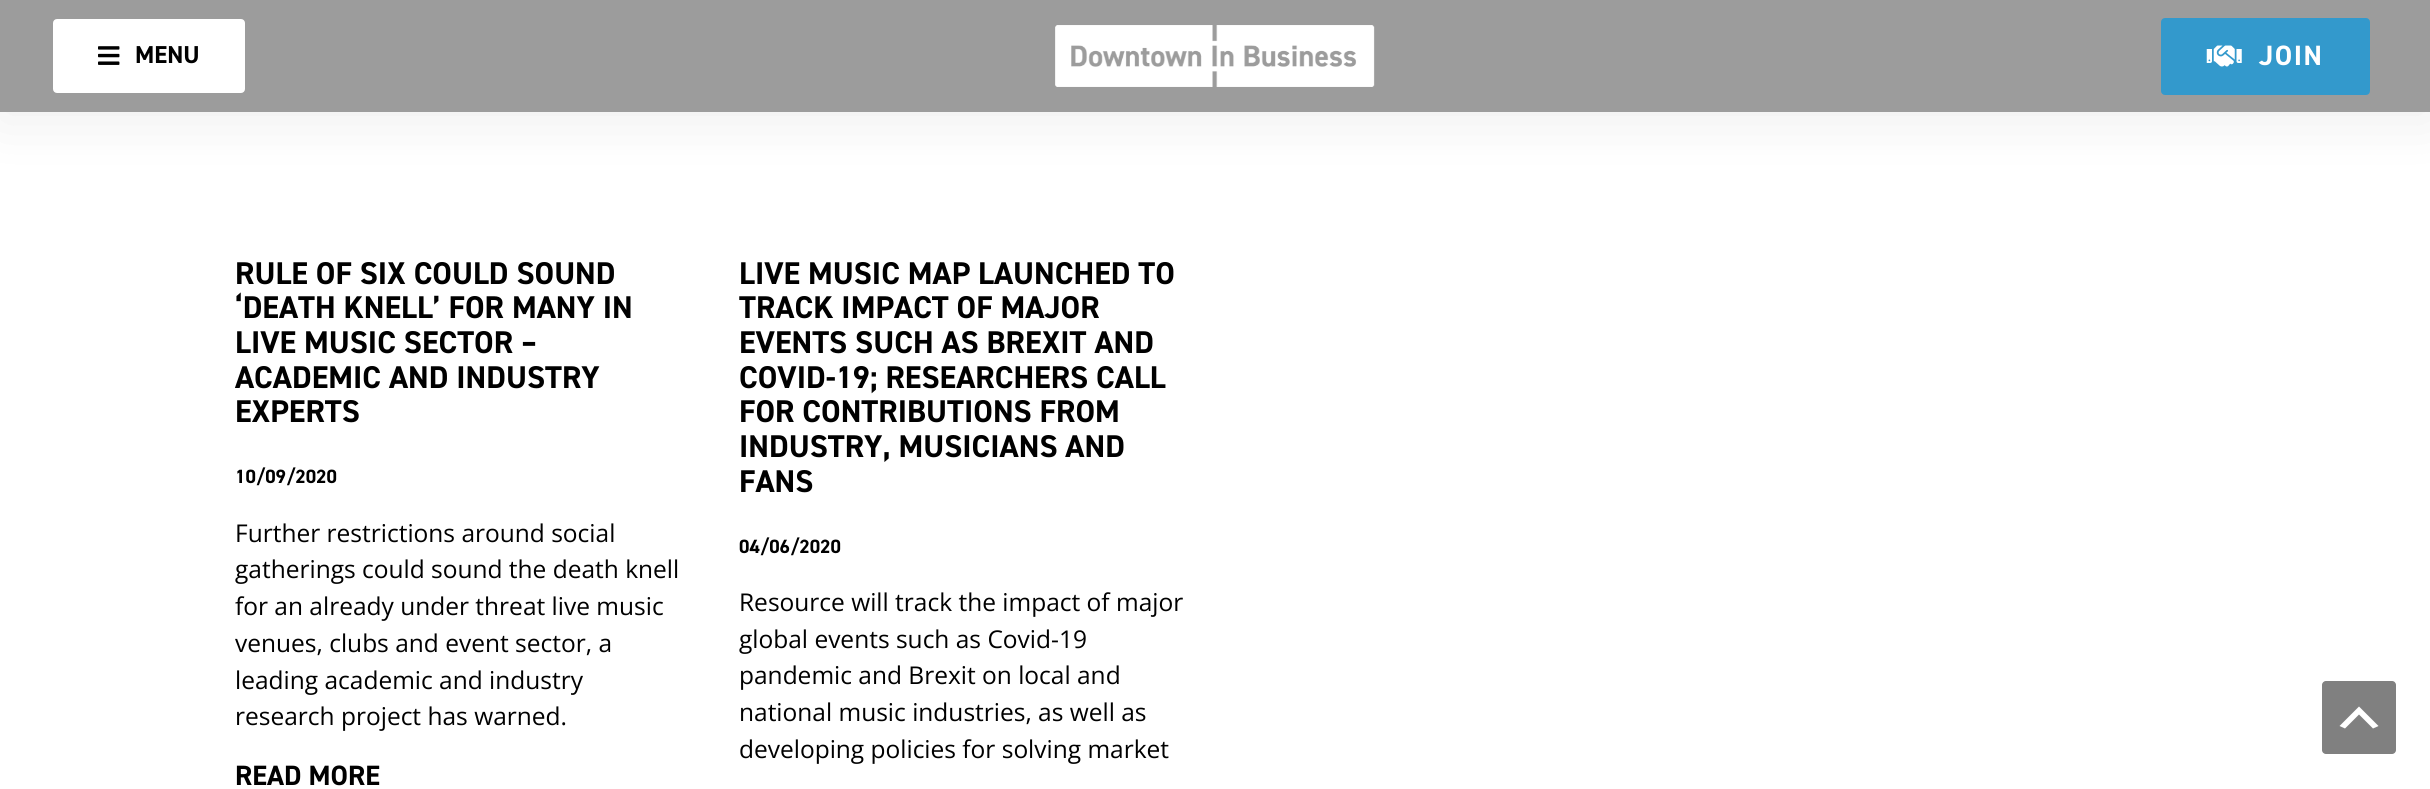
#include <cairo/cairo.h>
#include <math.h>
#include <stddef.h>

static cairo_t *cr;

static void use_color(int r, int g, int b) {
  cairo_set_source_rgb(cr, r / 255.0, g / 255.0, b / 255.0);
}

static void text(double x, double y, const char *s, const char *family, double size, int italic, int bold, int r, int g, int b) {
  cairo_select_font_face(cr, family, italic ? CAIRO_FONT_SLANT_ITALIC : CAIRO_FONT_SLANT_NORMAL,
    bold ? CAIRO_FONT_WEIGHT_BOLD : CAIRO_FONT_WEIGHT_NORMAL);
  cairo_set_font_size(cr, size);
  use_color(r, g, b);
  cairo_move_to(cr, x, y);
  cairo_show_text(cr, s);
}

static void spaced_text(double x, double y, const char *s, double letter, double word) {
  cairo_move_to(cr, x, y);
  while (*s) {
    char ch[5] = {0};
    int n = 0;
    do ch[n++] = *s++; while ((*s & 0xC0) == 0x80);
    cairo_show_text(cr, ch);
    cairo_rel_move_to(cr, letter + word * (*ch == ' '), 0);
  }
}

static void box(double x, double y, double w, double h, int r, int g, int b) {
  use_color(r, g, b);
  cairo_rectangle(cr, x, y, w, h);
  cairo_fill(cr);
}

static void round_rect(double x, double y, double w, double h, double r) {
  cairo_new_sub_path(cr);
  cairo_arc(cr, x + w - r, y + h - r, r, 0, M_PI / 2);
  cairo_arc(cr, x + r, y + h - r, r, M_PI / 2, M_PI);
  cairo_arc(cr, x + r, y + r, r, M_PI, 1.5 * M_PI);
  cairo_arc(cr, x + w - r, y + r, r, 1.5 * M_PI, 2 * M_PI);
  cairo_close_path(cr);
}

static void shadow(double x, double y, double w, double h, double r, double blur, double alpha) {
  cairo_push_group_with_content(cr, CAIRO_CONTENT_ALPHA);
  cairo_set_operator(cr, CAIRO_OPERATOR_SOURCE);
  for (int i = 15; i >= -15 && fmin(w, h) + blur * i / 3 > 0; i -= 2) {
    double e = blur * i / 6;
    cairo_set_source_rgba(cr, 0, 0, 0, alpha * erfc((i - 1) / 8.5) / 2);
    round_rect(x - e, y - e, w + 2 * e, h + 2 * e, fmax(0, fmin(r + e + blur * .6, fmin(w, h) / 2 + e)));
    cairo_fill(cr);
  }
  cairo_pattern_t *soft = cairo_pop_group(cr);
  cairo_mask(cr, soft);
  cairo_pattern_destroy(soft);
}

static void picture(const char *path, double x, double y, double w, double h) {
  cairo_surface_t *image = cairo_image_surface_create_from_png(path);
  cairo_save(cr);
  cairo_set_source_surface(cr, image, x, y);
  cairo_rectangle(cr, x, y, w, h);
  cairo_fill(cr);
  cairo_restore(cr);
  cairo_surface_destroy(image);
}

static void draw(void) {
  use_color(255, 255, 255);
  cairo_paint(cr);
  use_color(0, 0, 0);
  shadow(-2, 5, 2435, 116, 0, 29, 0.07);
  box(0, 0, 2430, 112, 156, 156, 156);
  use_color(255, 255, 255);
  round_rect(55, 21, 188, 70, 2);
  cairo_fill_preserve(cr);
  cairo_set_line_width(cr, 4);
  cairo_stroke(cr);
  picture("img_01.png", 98, 46, 22, 19);
  picture("img_02.png", 1055, 25, 320, 62);
  use_color(51, 153, 204);
  round_rect(2163, 20, 205, 73, 2);
  cairo_fill_preserve(cr);
  cairo_stroke(cr);
  picture("img_03.png", 2206, 45, 36, 22);
  use_color(128, 128, 128);
  round_rect(2322, 681, 74, 73, 4);
  cairo_fill(cr);
  use_color(255, 255, 255);
  cairo_new_path(cr);
  cairo_move_to(cr, 2373, 728.5);
  cairo_line_to(cr, 2359, 714.5);
  cairo_line_to(cr, 2345, 728.5);
  cairo_line_to(cr, 2339.5, 726);
  cairo_line_to(cr, 2359, 706.5);
  cairo_line_to(cr, 2378.5, 726);
  cairo_close_path(cr);
  cairo_fill(cr);
  text(135, 63, "MENU", "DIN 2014", 24.5, 0, 1, 0, 0, 0);
  cairo_set_font_size(cr, 28);
  use_color(255, 255, 255);
  spaced_text(2259, 65, "JOIN", 1.5, 0);
  text(235, 284, "RULE OF SIX COULD SOUND", "DIN 2014", 31.5, 0, 1, 0, 0, 0);
  text(235, 318, "‘DEATH KNELL’ FOR MANY IN", "DIN 2014", 31.5, 0, 1, 0, 0, 0);
  text(235, 353, "LIVE MUSIC SECTOR –", "DIN 2014", 31.5, 0, 1, 0, 0, 0);
  text(235, 388, "ACADEMIC AND INDUSTRY", "DIN 2014", 31.5, 0, 1, 0, 0, 0);
  text(235, 422, "EXPERTS", "DIN 2014", 31.5, 0, 1, 0, 0, 0);
  text(235, 483, "10/09/2020", "DIN 2014", 19.25, 0, 1, 0, 0, 0);
  text(235, 542, "Further restrictions around social", "Open Sans", 24.5, 0, 0, 0, 0, 0);
  text(235, 578, "gatherings could sound the death knell", "Open Sans", 24.5, 0, 0, 0, 0, 0);
  text(235, 615, "for an already under threat live music", "Open Sans", 24.5, 0, 0, 0, 0, 0);
  text(235, 652, "venues, clubs and event sector, a", "Open Sans", 24.5, 0, 0, 0, 0, 0);
  text(235, 689, "leading academic and industry", "Open Sans", 24.5, 0, 0, 0, 0, 0);
  text(235, 725, "research project has warned.", "Open Sans", 24.5, 0, 0, 0, 0, 0);
  text(235, 785, "READ MORE", "DIN 2014", 28, 0, 1, 0, 0, 0);
  text(739, 284, "LIVE MUSIC MAP LAUNCHED TO", "DIN 2014", 31.5, 0, 1, 0, 0, 0);
  cairo_save(cr);
  cairo_rectangle(cr, 739, 0, 451, 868);
  cairo_clip(cr);
  text(739, 318, "TRACK IMPACT OF MAJOR", "DIN 2014", 31.5, 0, 1, 0, 0, 0);
  cairo_restore(cr);
  text(739, 353, "EVENTS SUCH AS BREXIT AND", "DIN 2014", 31.5, 0, 1, 0, 0, 0);
  text(739, 388, "COVID-19; RESEARCHERS CALL", "DIN 2014", 31.5, 0, 1, 0, 0, 0);
  text(739, 422, "FOR CONTRIBUTIONS FROM", "DIN 2014", 31.5, 0, 1, 0, 0, 0);
  text(739, 457, "INDUSTRY, MUSICIANS AND", "DIN 2014", 31.5, 0, 1, 0, 0, 0);
  text(739, 492, "FANS", "DIN 2014", 31.5, 0, 1, 0, 0, 0);
  text(739, 553, "04/06/2020", "DIN 2014", 19.25, 0, 1, 0, 0, 0);
  text(739, 611, "Resource will track the impact of major", "Open Sans", 24.5, 0, 0, 0, 0, 0);
  text(739, 648, "global events such as Covid-19", "Open Sans", 24.5, 0, 0, 0, 0, 0);
  text(739, 684, "pandemic and Brexit on local and", "Open Sans", 24.5, 0, 0, 0, 0, 0);
  text(739, 721, "national music industries, as well as", "Open Sans", 24.5, 0, 0, 0, 0, 0);
  text(739, 758, "developing policies for solving market", "Open Sans", 24.5, 0, 0, 0, 0, 0);
}

int main(void) {
  cairo_surface_t *surface = cairo_image_surface_create(CAIRO_FORMAT_RGB24, 2430, 789);
  cr = cairo_create(surface);
  cairo_font_options_t *options = cairo_font_options_create();
  cairo_font_options_set_hint_metrics(options, CAIRO_HINT_METRICS_OFF);
  cairo_font_options_set_hint_style(options, CAIRO_HINT_STYLE_NONE);
  cairo_set_font_options(cr, options);
  cairo_set_miter_limit(cr, 4);
  draw();
  cairo_surface_write_to_png(surface, "out.png");
  cairo_font_options_destroy(options);
  cairo_destroy(cr);
  cairo_surface_destroy(surface);
  return 0;
}
